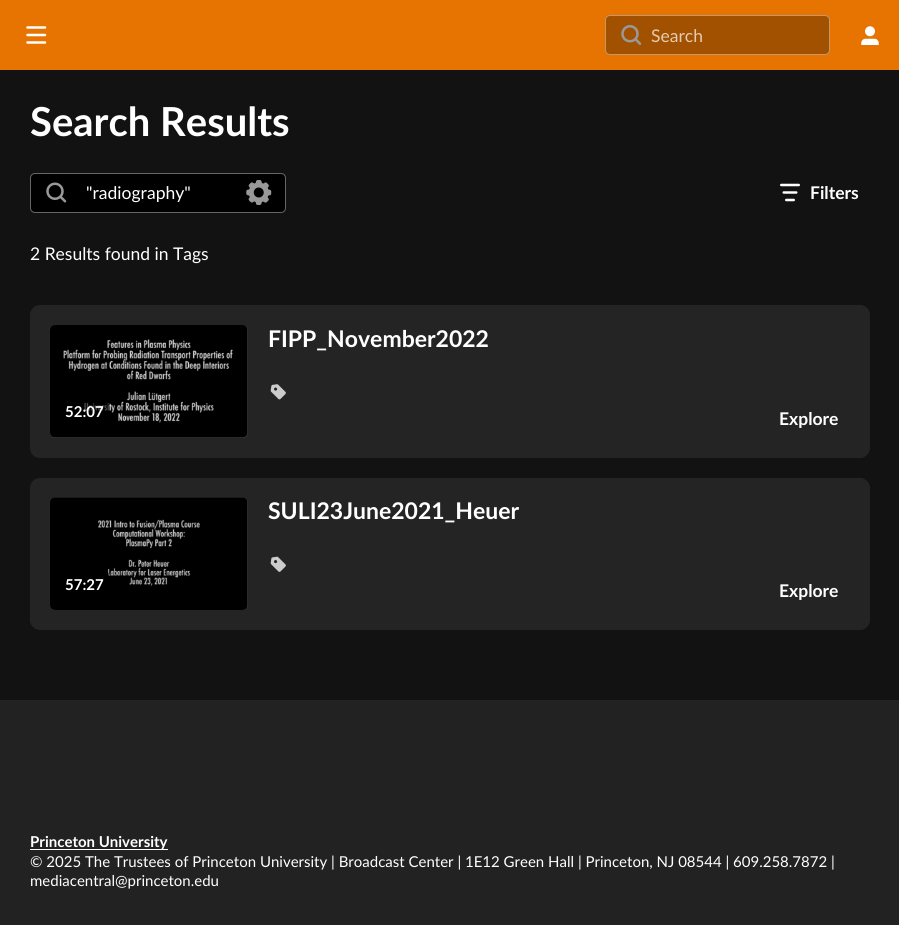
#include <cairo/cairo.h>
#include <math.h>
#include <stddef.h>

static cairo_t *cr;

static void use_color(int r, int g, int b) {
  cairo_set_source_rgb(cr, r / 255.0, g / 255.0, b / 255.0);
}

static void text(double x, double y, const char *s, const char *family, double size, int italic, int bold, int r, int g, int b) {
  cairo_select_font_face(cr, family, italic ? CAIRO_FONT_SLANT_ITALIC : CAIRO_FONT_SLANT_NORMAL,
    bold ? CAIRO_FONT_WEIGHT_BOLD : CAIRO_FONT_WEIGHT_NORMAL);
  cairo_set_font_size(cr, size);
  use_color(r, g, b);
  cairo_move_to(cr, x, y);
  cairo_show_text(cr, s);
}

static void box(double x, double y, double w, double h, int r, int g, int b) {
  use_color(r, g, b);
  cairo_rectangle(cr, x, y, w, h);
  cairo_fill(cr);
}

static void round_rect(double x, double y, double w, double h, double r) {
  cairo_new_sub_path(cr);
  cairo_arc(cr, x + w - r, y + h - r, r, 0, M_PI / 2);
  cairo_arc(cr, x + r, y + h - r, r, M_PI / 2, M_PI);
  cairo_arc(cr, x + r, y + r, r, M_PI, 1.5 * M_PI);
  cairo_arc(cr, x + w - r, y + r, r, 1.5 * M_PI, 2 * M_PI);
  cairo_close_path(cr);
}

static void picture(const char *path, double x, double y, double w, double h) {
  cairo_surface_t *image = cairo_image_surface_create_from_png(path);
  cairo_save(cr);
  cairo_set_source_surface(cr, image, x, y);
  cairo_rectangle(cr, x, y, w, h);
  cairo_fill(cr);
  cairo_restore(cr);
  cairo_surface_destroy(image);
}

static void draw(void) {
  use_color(18, 18, 18);
  cairo_paint(cr);
  box(0, 0, 899, 70, 231, 116, 0);
  picture("img_01.png", 26, 26, 21, 18);
  use_color(162, 81, 0);
  round_rect(605, 15, 225, 40, 5);
  cairo_fill(cr);
  round_rect(605.5, 15.5, 224, 39, 4.5);
  cairo_set_source_rgba(cr, 1, 1, 1, 0.4);
  cairo_set_line_width(cr, 1);
  cairo_stroke(cr);
  picture("img_02.png", 621, 25, 21, 20);
  picture("img_03.png", 861, 26, 18, 19);
  use_color(0, 0, 0);
  round_rect(30.5, 173.5, 255, 39, 4.5);
  cairo_fill_preserve(cr);
  use_color(102, 102, 102);
  cairo_stroke(cr);
  picture("img_04.png", 46, 182, 21, 21);
  picture("img_05.png", 246, 180, 26, 25);
  picture("img_06.png", 780, 183, 20, 19);
  use_color(36, 36, 36);
  round_rect(30, 305, 840, 153, 10);
  cairo_fill(cr);
  picture("img_07.png", 270, 384, 16, 16);
  use_color(56, 56, 56);
  round_rect(50, 325, 198, 113, 5);
  cairo_fill(cr);
  picture("img_08.png", 50, 325, 198, 113);
  cairo_set_source_rgba(cr, 0, 0, 0, 0.6);
  round_rect(60, 398, 49, 30, 5);
  cairo_fill(cr);
  use_color(36, 36, 36);
  round_rect(30, 478, 840, 152, 10);
  cairo_fill(cr);
  picture("img_09.png", 270, 556, 16, 16);
  use_color(56, 56, 56);
  round_rect(50, 498, 198, 112, 5);
  cairo_fill(cr);
  picture("img_10.png", 50, 497, 198, 113);
  cairo_set_source_rgba(cr, 0, 0, 0, 0.6);
  round_rect(60, 570, 49, 30, 5);
  cairo_fill(cr);
  box(0, 700, 899, 225, 34, 34, 34);
  box(30, 849, 138, 1, 255, 255, 255);
  text(651, 42, "Search", "Lato", 17.5, 0, 0, 227, 203, 179);
  text(30, 136, "Search Results", "Lato", 40, 0, 1, 255, 255, 255);
  text(86, 199, "\"radiography\"", "Lato", 17.5, 0, 0, 255, 255, 255);
  text(810, 199, "Filters", "Lato", 17.5, 0, 1, 255, 255, 255);
  text(30, 260, "2 Results found in Tags", "Lato", 17.5, 0, 0, 255, 255, 255);
  text(268, 347, "FIPP_November2022", "Lato", 23, 0, 1, 255, 255, 255);
  text(65, 417, "52:07", "Lato", 15, 0, 1, 255, 255, 255);
  text(779, 425, "Explore", "Lato", 17.5, 0, 1, 255, 255, 255);
  text(268, 519, "SULI23June2021_Heuer", "Lato", 23, 0, 1, 255, 255, 255);
  text(65, 590, "57:27", "Lato", 15, 0, 1, 255, 255, 255);
  text(779, 597, "Explore", "Lato", 17.5, 0, 1, 255, 255, 255);
  text(30, 847, "Princeton University", "Lato", 15, 0, 1, 255, 255, 255);
  text(30, 867, "© 2025 The Trustees of Princeton University | Broadcast Center | 1E12 Green Hall | Princeton, NJ 08544 | 609.258.7872 |", "Lato", 15, 0, 0, 255, 255, 255);
  text(30, 886, "mediacentral@princeton.edu", "Lato", 15, 0, 0, 255, 255, 255);
}

int main(void) {
  cairo_surface_t *surface = cairo_image_surface_create(CAIRO_FORMAT_RGB24, 899, 925);
  cr = cairo_create(surface);
  cairo_font_options_t *options = cairo_font_options_create();
  cairo_font_options_set_hint_metrics(options, CAIRO_HINT_METRICS_OFF);
  cairo_font_options_set_hint_style(options, CAIRO_HINT_STYLE_NONE);
  cairo_set_font_options(cr, options);
  cairo_set_miter_limit(cr, 4);
  draw();
  cairo_surface_write_to_png(surface, "out.png");
  cairo_font_options_destroy(options);
  cairo_destroy(cr);
  cairo_surface_destroy(surface);
  return 0;
}
